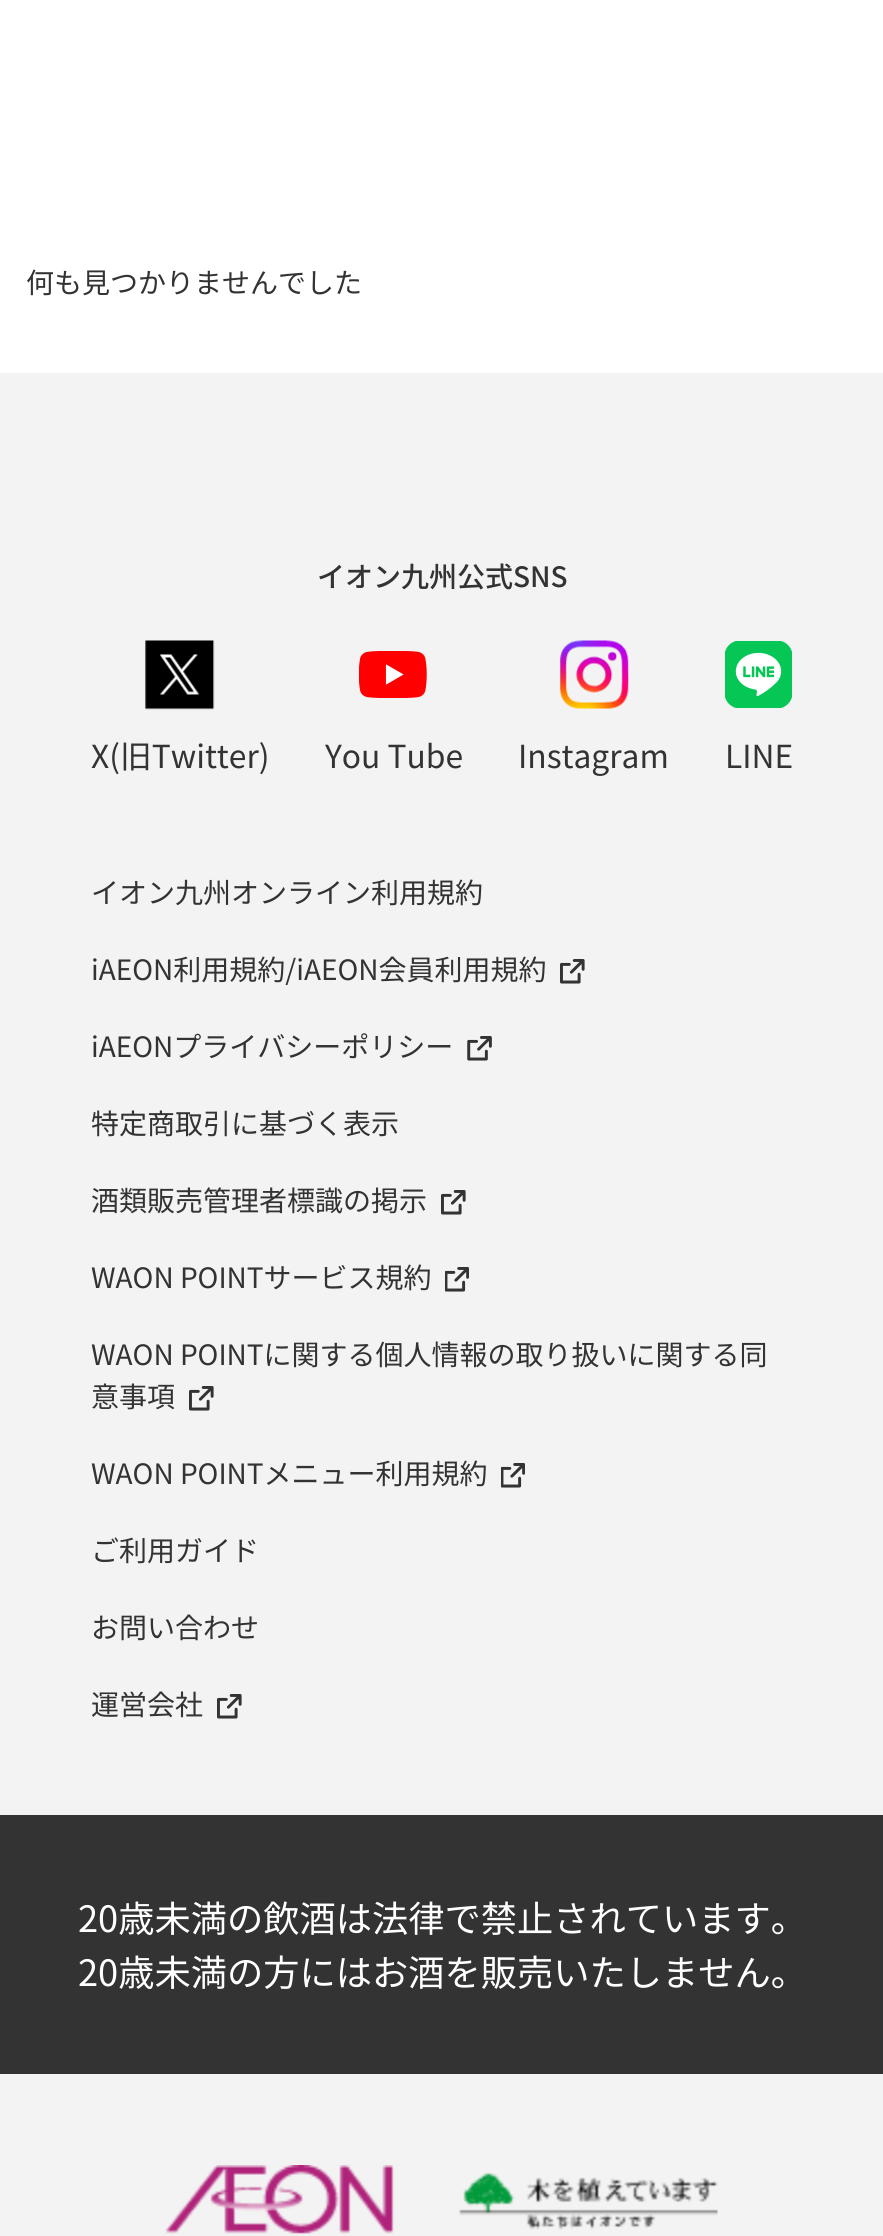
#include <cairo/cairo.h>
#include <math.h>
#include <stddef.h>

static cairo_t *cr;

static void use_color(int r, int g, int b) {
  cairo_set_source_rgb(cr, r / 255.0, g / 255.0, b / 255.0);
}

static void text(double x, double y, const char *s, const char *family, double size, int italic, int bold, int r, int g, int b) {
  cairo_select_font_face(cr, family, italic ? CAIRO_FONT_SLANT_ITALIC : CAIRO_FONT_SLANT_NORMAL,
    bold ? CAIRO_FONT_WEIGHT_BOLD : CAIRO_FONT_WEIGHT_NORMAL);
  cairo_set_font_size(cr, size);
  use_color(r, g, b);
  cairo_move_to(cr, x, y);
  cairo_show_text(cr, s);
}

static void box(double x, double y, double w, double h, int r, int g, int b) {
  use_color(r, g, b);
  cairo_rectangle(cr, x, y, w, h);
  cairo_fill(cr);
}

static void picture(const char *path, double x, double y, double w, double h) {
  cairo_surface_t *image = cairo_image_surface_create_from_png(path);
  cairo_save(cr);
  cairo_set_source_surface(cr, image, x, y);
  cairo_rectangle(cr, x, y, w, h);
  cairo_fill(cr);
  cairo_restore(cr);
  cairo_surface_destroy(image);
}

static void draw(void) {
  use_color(255, 255, 255);
  cairo_paint(cr);
  box(0, 373, 883, 1863, 243, 243, 243);
  picture("img_01.png", 145, 640, 70, 70);
  picture("img_02.png", 359, 651, 68, 47);
  picture("img_03.png", 560, 640, 69, 69);
  picture("img_04.png", 725, 641, 67, 67);
  picture("img_05.png", 560, 959, 25, 25);
  picture("img_06.png", 467, 1036, 25, 25);
  picture("img_05.png", 441, 1190, 25, 25);
  picture("img_07.png", 445, 1267, 24, 25);
  picture("img_05.png", 189, 1386, 25, 25);
  picture("img_07.png", 501, 1463, 24, 25);
  picture("img_05.png", 217, 1694, 25, 25);
  box(0, 1815, 883, 259, 51, 51, 51);
  picture("img_08.png", 165, 2165, 553, 69);
  text(26, 293, "何も見つかりませんでした", "Noto Sans JP", 28, 0, 0, 51, 51, 51);
  text(317, 587, "イオン九州公式SNS", "Noto Sans JP Medium", 28, 0, 0, 51, 51, 51);
  text(91, 768, "X(旧Twitter)", "Noto Sans JP", 31.75, 0, 0, 51, 51, 51);
  text(325, 768, "You Tube", "Noto Sans JP", 31.75, 0, 0, 51, 51, 51);
  text(518, 768, "Instagram", "Noto Sans JP", 31.75, 0, 0, 51, 51, 51);
  text(725, 768, "LINE", "Noto Sans JP", 31.75, 0, 0, 51, 51, 51);
  text(91, 903, "イオン九州オンライン利用規約", "Noto Sans JP", 28, 0, 0, 51, 51, 51);
  text(91, 980, "iAEON利用規約/iAEON会員利用規約", "Noto Sans JP", 28, 0, 0, 51, 51, 51);
  text(91, 1057, "iAEONプライバシーポリシー", "Noto Sans JP", 28, 0, 0, 51, 51, 51);
  text(91, 1134, "特定商取引に基づく表示", "Noto Sans JP", 28, 0, 0, 51, 51, 51);
  text(91, 1211, "酒類販売管理者標識の掲示", "Noto Sans JP", 28, 0, 0, 51, 51, 51);
  text(91, 1288, "WAON POINTサービス規約", "Noto Sans JP", 28, 0, 0, 51, 51, 51);
  text(91, 1365, "WAON POINTに関する個人情報の取り扱いに関する同", "Noto Sans JP", 28, 0, 0, 51, 51, 51);
  text(91, 1407, "意事項", "Noto Sans JP", 28, 0, 0, 51, 51, 51);
  text(91, 1484, "WAON POINTメニュー利用規約", "Noto Sans JP", 28, 0, 0, 51, 51, 51);
  text(91, 1561, "ご利用ガイド", "Noto Sans JP", 28, 0, 0, 51, 51, 51);
  text(91, 1638, "お問い合わせ", "Noto Sans JP", 28, 0, 0, 51, 51, 51);
  text(91, 1715, "運営会社", "Noto Sans JP", 28, 0, 0, 51, 51, 51);
  text(78, 1932, "20歳未満の飲酒は法律で禁止されています。", "Noto Sans JP", 36.25, 0, 0, 255, 255, 255);
  text(78, 1986, "20歳未満の方にはお酒を販売いたしません。", "Noto Sans JP", 36.25, 0, 0, 255, 255, 255);
}

int main(void) {
  cairo_surface_t *surface = cairo_image_surface_create(CAIRO_FORMAT_RGB24, 883, 2236);
  cr = cairo_create(surface);
  cairo_font_options_t *options = cairo_font_options_create();
  cairo_font_options_set_hint_metrics(options, CAIRO_HINT_METRICS_OFF);
  cairo_font_options_set_hint_style(options, CAIRO_HINT_STYLE_NONE);
  cairo_set_font_options(cr, options);
  cairo_set_miter_limit(cr, 4);
  draw();
  cairo_surface_write_to_png(surface, "out.png");
  cairo_font_options_destroy(options);
  cairo_destroy(cr);
  cairo_surface_destroy(surface);
  return 0;
}
